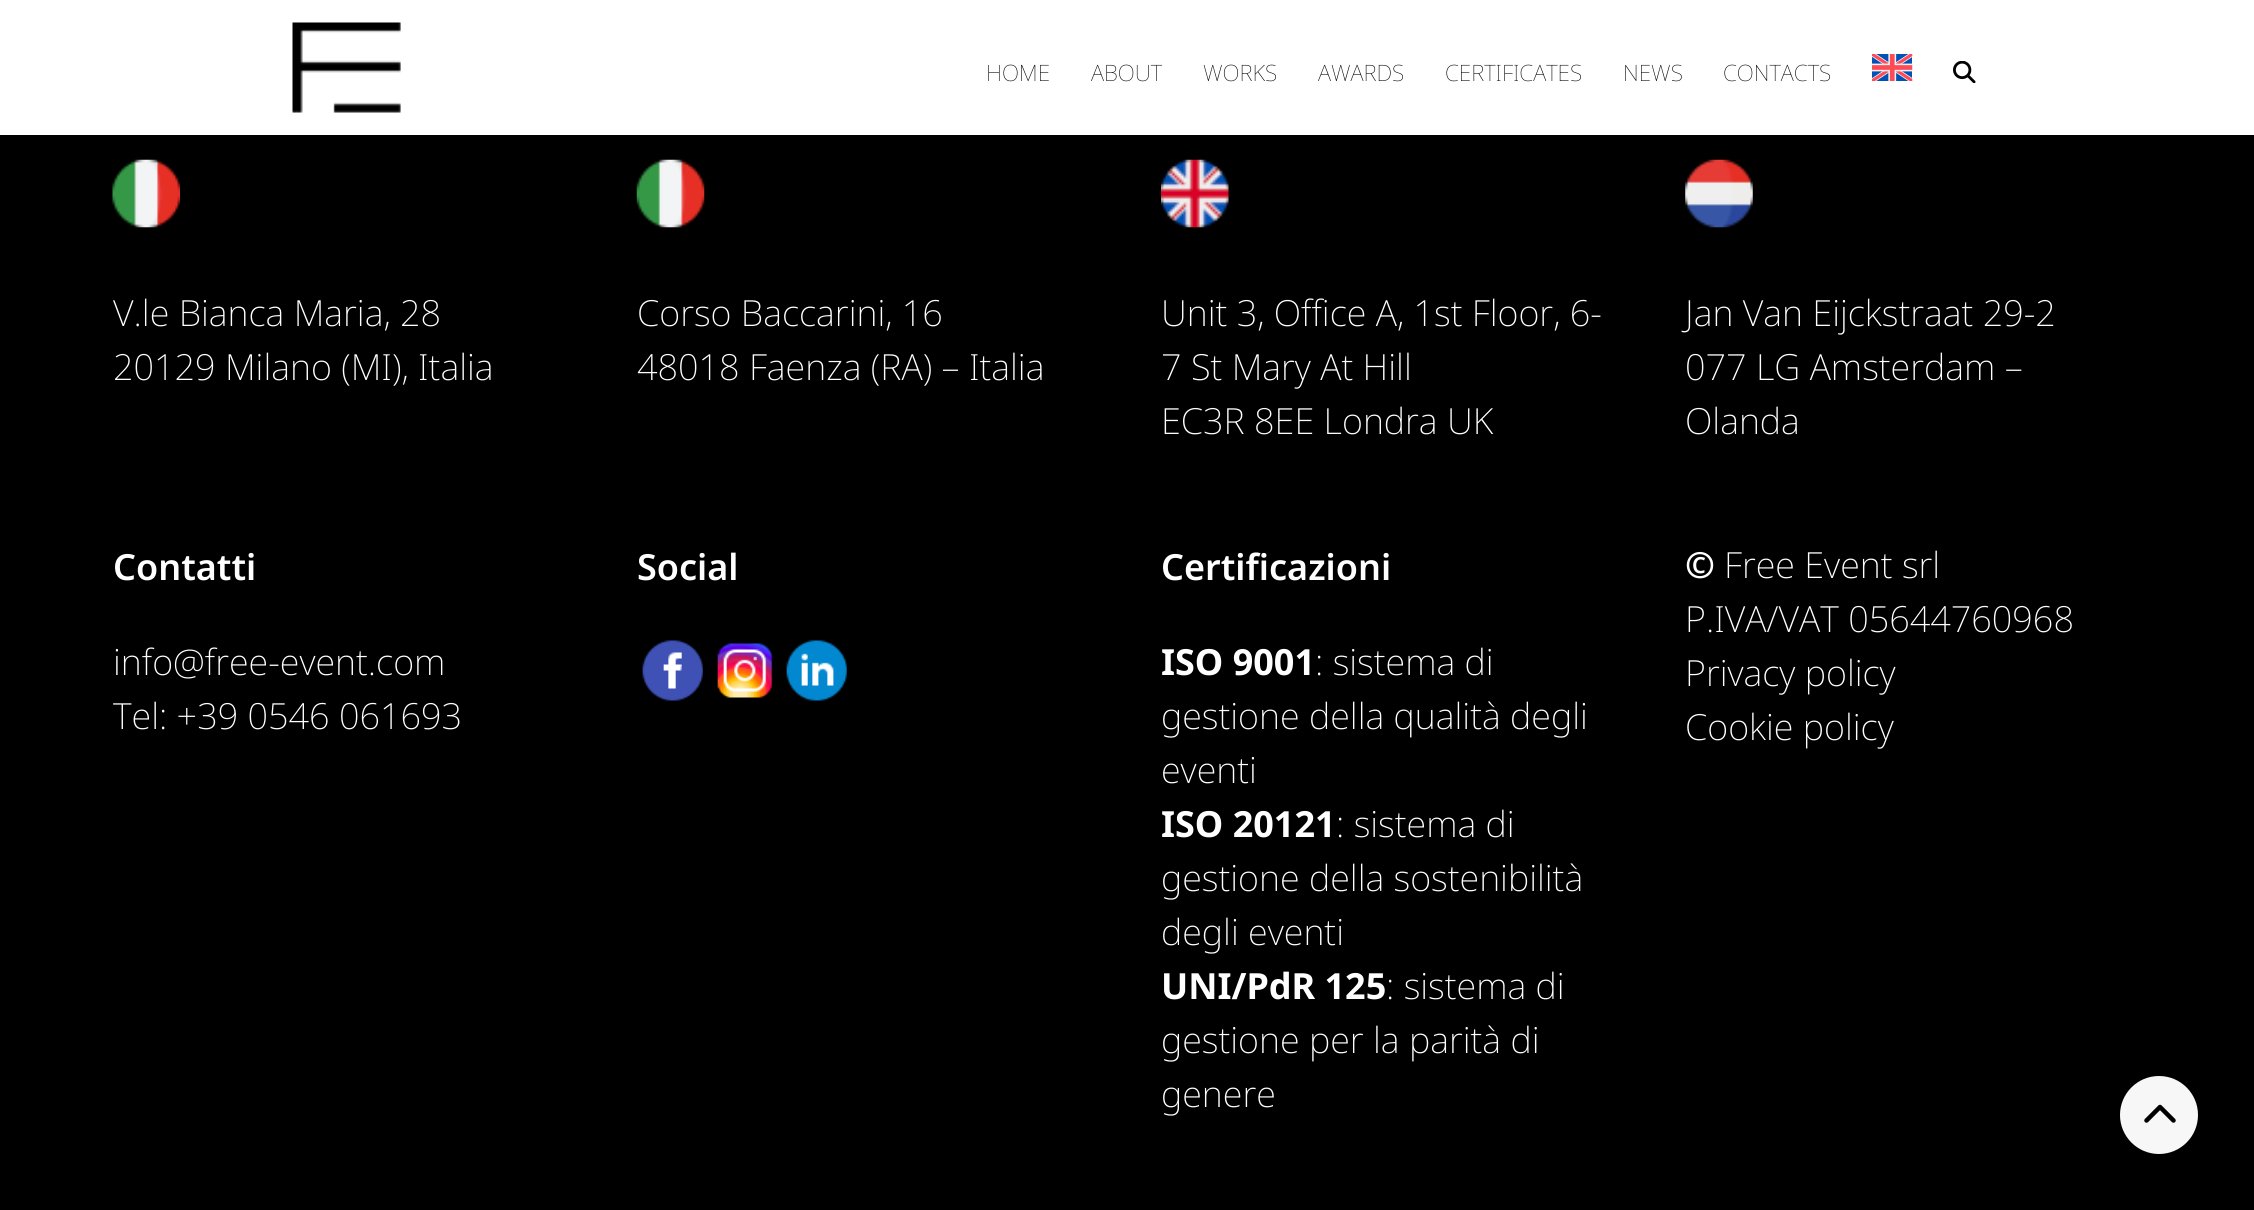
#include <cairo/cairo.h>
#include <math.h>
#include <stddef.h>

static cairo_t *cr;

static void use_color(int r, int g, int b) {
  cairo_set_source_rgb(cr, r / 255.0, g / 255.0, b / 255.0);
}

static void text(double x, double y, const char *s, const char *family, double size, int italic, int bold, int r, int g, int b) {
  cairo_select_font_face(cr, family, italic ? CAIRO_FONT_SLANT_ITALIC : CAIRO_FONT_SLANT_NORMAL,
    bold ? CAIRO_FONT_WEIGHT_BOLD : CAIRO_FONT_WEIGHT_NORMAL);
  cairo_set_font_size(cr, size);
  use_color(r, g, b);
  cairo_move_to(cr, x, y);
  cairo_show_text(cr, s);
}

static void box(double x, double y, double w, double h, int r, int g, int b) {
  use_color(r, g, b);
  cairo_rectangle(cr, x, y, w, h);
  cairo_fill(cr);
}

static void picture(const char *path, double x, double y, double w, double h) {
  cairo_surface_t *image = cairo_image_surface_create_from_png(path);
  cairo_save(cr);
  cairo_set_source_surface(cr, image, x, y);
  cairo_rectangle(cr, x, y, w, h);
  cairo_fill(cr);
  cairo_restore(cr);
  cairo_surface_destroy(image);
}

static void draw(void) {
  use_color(0, 0, 0);
  cairo_paint(cr);
  box(0, 0, 2254, 135, 255, 255, 255);
  picture("img_01.png", 292, 22, 109, 91);
  picture("img_02.png", 1872, 54, 41, 27);
  picture("img_03.png", 1953, 61, 23, 22);
  picture("img_04.png", 112, 159, 68, 69);
  picture("img_05.png", 636, 159, 69, 69);
  picture("img_06.png", 1161, 159, 68, 69);
  picture("img_07.png", 1685, 159, 68, 69);
  picture("img_08.png", 642, 640, 61, 61);
  picture("img_09.png", 717, 643, 56, 55);
  picture("img_10.png", 786, 640, 61, 61);
  use_color(247, 247, 247);
  cairo_arc(cr, 2159, 1115, 39, 0, 2 * M_PI);
  cairo_fill(cr);
  picture("img_11.png", 2144, 1104, 32, 19);
  text(986, 81, "HOME", "Noto Sans Thin", 22.5, 0, 0, 0, 0, 0);
  text(1091, 81, "ABOUT", "Noto Sans Thin", 22.5, 0, 0, 0, 0, 0);
  text(1203, 81, "WORKS", "Noto Sans Thin", 22.5, 0, 0, 0, 0, 0);
  text(1318, 81, "AWARDS", "Noto Sans Thin", 22.5, 0, 0, 0, 0, 0);
  text(1445, 81, "CERTIFICATES", "Noto Sans Thin", 22.5, 0, 0, 0, 0, 0);
  text(1623, 81, "NEWS", "Noto Sans Thin", 22.5, 0, 0, 0, 0, 0);
  text(1723, 81, "CONTACTS", "Noto Sans Thin", 22.5, 0, 0, 0, 0, 0);
  text(113, 326, "V.le Bianca Maria, 28", "Noto Sans ExtraLight", 36, 0, 0, 255, 255, 255);
  text(113, 380, "20129 Milano (MI), Italia", "Noto Sans ExtraLight", 36, 0, 0, 255, 255, 255);
  text(637, 326, "Corso Baccarini, 16", "Noto Sans ExtraLight", 36, 0, 0, 255, 255, 255);
  text(637, 380, "48018 Faenza (RA) – Italia", "Noto Sans ExtraLight", 36, 0, 0, 255, 255, 255);
  text(1161, 326, "Unit 3, Office A, 1st Floor, 6-", "Noto Sans ExtraLight", 36, 0, 0, 255, 255, 255);
  text(1161, 380, "7 St Mary At Hill", "Noto Sans ExtraLight", 36, 0, 0, 255, 255, 255);
  text(1161, 434, "EC3R 8EE Londra UK", "Noto Sans ExtraLight", 36, 0, 0, 255, 255, 255);
  text(1685, 326, "Jan Van Eijckstraat 29-2", "Noto Sans ExtraLight", 36, 0, 0, 255, 255, 255);
  text(1685, 380, "077 LG Amsterdam –", "Noto Sans ExtraLight", 36, 0, 0, 255, 255, 255);
  text(1685, 434, "Olanda", "Noto Sans ExtraLight", 36, 0, 0, 255, 255, 255);
  text(113, 580, "Contatti", "Noto Sans SemiBold", 36, 0, 0, 255, 255, 255);
  text(113, 675, "info@free-event.com", "Noto Sans ExtraLight", 36, 0, 0, 255, 255, 255);
  text(113, 729, "Tel: +39 0546 061693", "Noto Sans ExtraLight", 36, 0, 0, 255, 255, 255);
  text(637, 580, "Social", "Noto Sans SemiBold", 36, 0, 0, 255, 255, 255);
  text(1161, 580, "Certificazioni", "Noto Sans SemiBold", 36, 0, 0, 255, 255, 255);
  text(1161, 675, "ISO 9001", "Noto Sans", 36, 0, 1, 255, 255, 255);
  text(1315, 675, ": sistema di", "Noto Sans ExtraLight", 36, 0, 0, 255, 255, 255);
  text(1161, 729, "gestione della qualità degli", "Noto Sans ExtraLight", 36, 0, 0, 255, 255, 255);
  text(1161, 783, "eventi", "Noto Sans ExtraLight", 36, 0, 0, 255, 255, 255);
  text(1161, 837, "ISO 20121", "Noto Sans", 36, 0, 1, 255, 255, 255);
  text(1336, 837, ": sistema di", "Noto Sans ExtraLight", 36, 0, 0, 255, 255, 255);
  text(1161, 891, "gestione della sostenibilità", "Noto Sans ExtraLight", 36, 0, 0, 255, 255, 255);
  text(1161, 945, "degli eventi", "Noto Sans ExtraLight", 36, 0, 0, 255, 255, 255);
  text(1161, 999, "UNI/PdR 125", "Noto Sans", 36, 0, 1, 255, 255, 255);
  text(1386, 999, ": sistema di", "Noto Sans ExtraLight", 36, 0, 0, 255, 255, 255);
  text(1161, 1053, "gestione per la parità di", "Noto Sans ExtraLight", 36, 0, 0, 255, 255, 255);
  text(1161, 1107, "genere", "Noto Sans ExtraLight", 36, 0, 0, 255, 255, 255);
  text(1685, 578, "©", "Noto Sans", 36, 0, 1, 255, 255, 255);
  text(1724, 578, "Free Event srl", "Noto Sans ExtraLight", 36, 0, 0, 255, 255, 255);
  text(1685, 632, "P.IVA/VAT 05644760968", "Noto Sans ExtraLight", 36, 0, 0, 255, 255, 255);
  text(1685, 686, "Privacy policy", "Noto Sans ExtraLight", 36, 0, 0, 255, 255, 255);
  text(1685, 740, "Cookie policy", "Noto Sans ExtraLight", 36, 0, 0, 255, 255, 255);
}

int main(void) {
  cairo_surface_t *surface = cairo_image_surface_create(CAIRO_FORMAT_RGB24, 2254, 1210);
  cr = cairo_create(surface);
  cairo_font_options_t *options = cairo_font_options_create();
  cairo_font_options_set_hint_metrics(options, CAIRO_HINT_METRICS_OFF);
  cairo_font_options_set_hint_style(options, CAIRO_HINT_STYLE_NONE);
  cairo_set_font_options(cr, options);
  cairo_set_miter_limit(cr, 4);
  draw();
  cairo_surface_write_to_png(surface, "out.png");
  cairo_font_options_destroy(options);
  cairo_destroy(cr);
  cairo_surface_destroy(surface);
  return 0;
}
